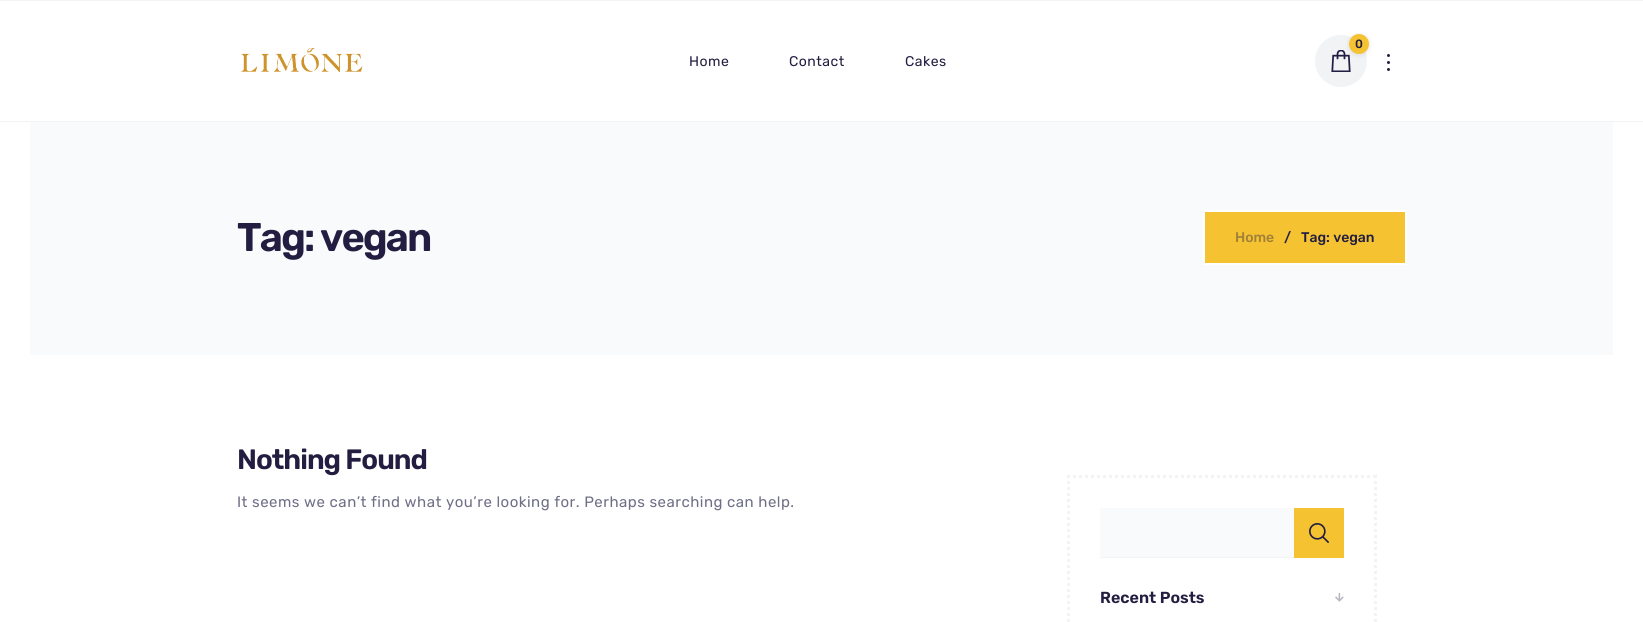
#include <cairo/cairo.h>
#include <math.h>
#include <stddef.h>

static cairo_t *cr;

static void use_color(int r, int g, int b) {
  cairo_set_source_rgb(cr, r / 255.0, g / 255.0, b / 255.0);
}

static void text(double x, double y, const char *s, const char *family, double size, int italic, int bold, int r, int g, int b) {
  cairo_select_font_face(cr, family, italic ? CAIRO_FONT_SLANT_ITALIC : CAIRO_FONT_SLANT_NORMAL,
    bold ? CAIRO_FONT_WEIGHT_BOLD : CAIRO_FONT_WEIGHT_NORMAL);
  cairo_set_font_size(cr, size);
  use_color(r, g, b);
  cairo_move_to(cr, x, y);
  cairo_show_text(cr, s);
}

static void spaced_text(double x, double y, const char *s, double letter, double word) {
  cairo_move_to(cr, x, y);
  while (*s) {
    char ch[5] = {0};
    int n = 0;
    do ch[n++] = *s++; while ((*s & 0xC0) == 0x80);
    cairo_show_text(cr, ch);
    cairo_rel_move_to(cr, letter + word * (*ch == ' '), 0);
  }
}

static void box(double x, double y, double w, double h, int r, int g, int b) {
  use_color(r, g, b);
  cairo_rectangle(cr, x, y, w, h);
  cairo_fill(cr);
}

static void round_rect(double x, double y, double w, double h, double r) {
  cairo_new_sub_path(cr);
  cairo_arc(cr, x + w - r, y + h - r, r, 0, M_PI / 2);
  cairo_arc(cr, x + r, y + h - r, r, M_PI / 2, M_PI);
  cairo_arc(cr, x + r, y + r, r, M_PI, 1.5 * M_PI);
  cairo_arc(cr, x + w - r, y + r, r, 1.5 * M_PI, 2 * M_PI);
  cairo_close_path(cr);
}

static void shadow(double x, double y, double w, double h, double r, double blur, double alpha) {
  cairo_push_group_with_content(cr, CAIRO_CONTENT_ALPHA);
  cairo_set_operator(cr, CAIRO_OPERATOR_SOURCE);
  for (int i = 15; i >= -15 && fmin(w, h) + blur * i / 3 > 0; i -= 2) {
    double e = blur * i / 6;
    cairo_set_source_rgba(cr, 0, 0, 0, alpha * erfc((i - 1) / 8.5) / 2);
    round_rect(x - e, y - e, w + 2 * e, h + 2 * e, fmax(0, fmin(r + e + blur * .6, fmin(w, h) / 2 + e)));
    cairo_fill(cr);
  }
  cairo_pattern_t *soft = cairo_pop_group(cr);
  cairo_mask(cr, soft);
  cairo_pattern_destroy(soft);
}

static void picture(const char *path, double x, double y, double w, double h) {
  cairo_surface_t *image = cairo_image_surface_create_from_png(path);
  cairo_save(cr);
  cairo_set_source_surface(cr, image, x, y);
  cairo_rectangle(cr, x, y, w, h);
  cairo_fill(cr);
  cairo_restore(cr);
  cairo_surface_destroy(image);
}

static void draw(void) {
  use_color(255, 255, 255);
  cairo_paint(cr);
  box(0, 0, 1643, 1, 242, 243, 245);
  box(0, 121, 1643, 1, 242, 243, 245);
  cairo_arc(cr, 1341, 61, 26, 0, 2 * M_PI);
  cairo_fill(cr);
  picture("img_01.png", 1331, 50, 20, 22);
  use_color(0, 0, 0);
  shadow(1349, 35, 20, 20, 10, 2.5, 0.1);
  use_color(245, 195, 50);
  cairo_arc(cr, 1359, 44, 10, 0, 2 * M_PI);
  cairo_fill(cr);
  use_color(35, 30, 65);
  cairo_arc(cr, 1388.5, 62.5, 1.5, 0, 2 * M_PI);
  cairo_fill(cr);
  cairo_arc(cr, 1388.5, 55.5, 1.5, 0, 2 * M_PI);
  cairo_fill(cr);
  cairo_arc(cr, 1388.5, 69.5, 1.5, 0, 2 * M_PI);
  cairo_fill(cr);
  picture("img_02.png", 241, 47, 122, 26);
  box(30, 122, 1583, 233, 249, 250, 252);
  use_color(245, 195, 50);
  cairo_rectangle(cr, 1204, 211, 202, 53);
  cairo_fill_preserve(cr);
  use_color(255, 255, 255);
  cairo_stroke(cr);
  cairo_new_path(cr);
  cairo_move_to(cr, 1067, 476.5);
  cairo_line_to(cr, 1377, 476.5);
  use_color(242, 243, 245);
  cairo_set_line_width(cr, 3);
  cairo_set_dash(cr, (double[]){3, 3}, 2, 0);
  cairo_stroke(cr);
  cairo_new_path(cr);
  cairo_move_to(cr, 1375.5, 475);
  cairo_line_to(cr, 1375.5, 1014);
  cairo_stroke(cr);
  cairo_new_path(cr);
  cairo_move_to(cr, 1068.5, 475);
  cairo_line_to(cr, 1068.5, 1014);
  cairo_stroke(cr);
  box(1100, 508, 194, 49, 249, 250, 252);
  box(1100, 557, 194, 1, 242, 243, 245);
  box(1294, 508, 50, 50, 245, 195, 50);
  picture("img_03.png", 1309, 523, 20, 20);
  picture("img_04.png", 1335, 592, 9, 10);
  text(1355, 48, "0", "Rubik Medium", 12, 0, 0, 35, 30, 65);
  cairo_select_font_face(cr, "Rubik", CAIRO_FONT_SLANT_NORMAL, CAIRO_FONT_WEIGHT_NORMAL);
  cairo_set_font_size(cr, 14);
  spaced_text(689, 66, "Home", 0.48, 0);
  spaced_text(789, 66, "Contact", 0.48, 0);
  spaced_text(905, 66, "Cakes", 0.48, 0);
  cairo_select_font_face(cr, "Rubik SemiBold", CAIRO_FONT_SLANT_NORMAL, CAIRO_FONT_WEIGHT_NORMAL);
  cairo_set_font_size(cr, 40);
  spaced_text(237, 251, "Tag: vegan", -2, 0);
  text(1235, 242, "Home", "Rubik Medium", 14, 0, 0, 161, 129, 56);
  text(1284, 242, "/", "Rubik Medium", 14, 0, 0, 35, 30, 65);
  text(1301, 242, "Tag: vegan", "Rubik Medium", 14, 0, 0, 35, 30, 65);
  cairo_select_font_face(cr, "Rubik SemiBold", CAIRO_FONT_SLANT_NORMAL, CAIRO_FONT_WEIGHT_NORMAL);
  cairo_set_font_size(cr, 28);
  spaced_text(237, 469, "Nothing Found", -1, 0);
  cairo_select_font_face(cr, "Rubik", CAIRO_FONT_SLANT_NORMAL, CAIRO_FONT_WEIGHT_NORMAL);
  cairo_set_font_size(cr, 15);
  use_color(111, 111, 135);
  spaced_text(237, 507, "It seems we can’t find what you’re looking for. Perhaps searching can help.", 0.48, 0);
  text(1100, 603, "Recent Posts", "Rubik SemiBold", 16, 0, 0, 35, 30, 65);
}

int main(void) {
  cairo_surface_t *surface = cairo_image_surface_create(CAIRO_FORMAT_RGB24, 1643, 622);
  cr = cairo_create(surface);
  cairo_font_options_t *options = cairo_font_options_create();
  cairo_font_options_set_hint_metrics(options, CAIRO_HINT_METRICS_OFF);
  cairo_font_options_set_hint_style(options, CAIRO_HINT_STYLE_NONE);
  cairo_set_font_options(cr, options);
  cairo_set_miter_limit(cr, 4);
  draw();
  cairo_surface_write_to_png(surface, "out.png");
  cairo_font_options_destroy(options);
  cairo_destroy(cr);
  cairo_surface_destroy(surface);
  return 0;
}
